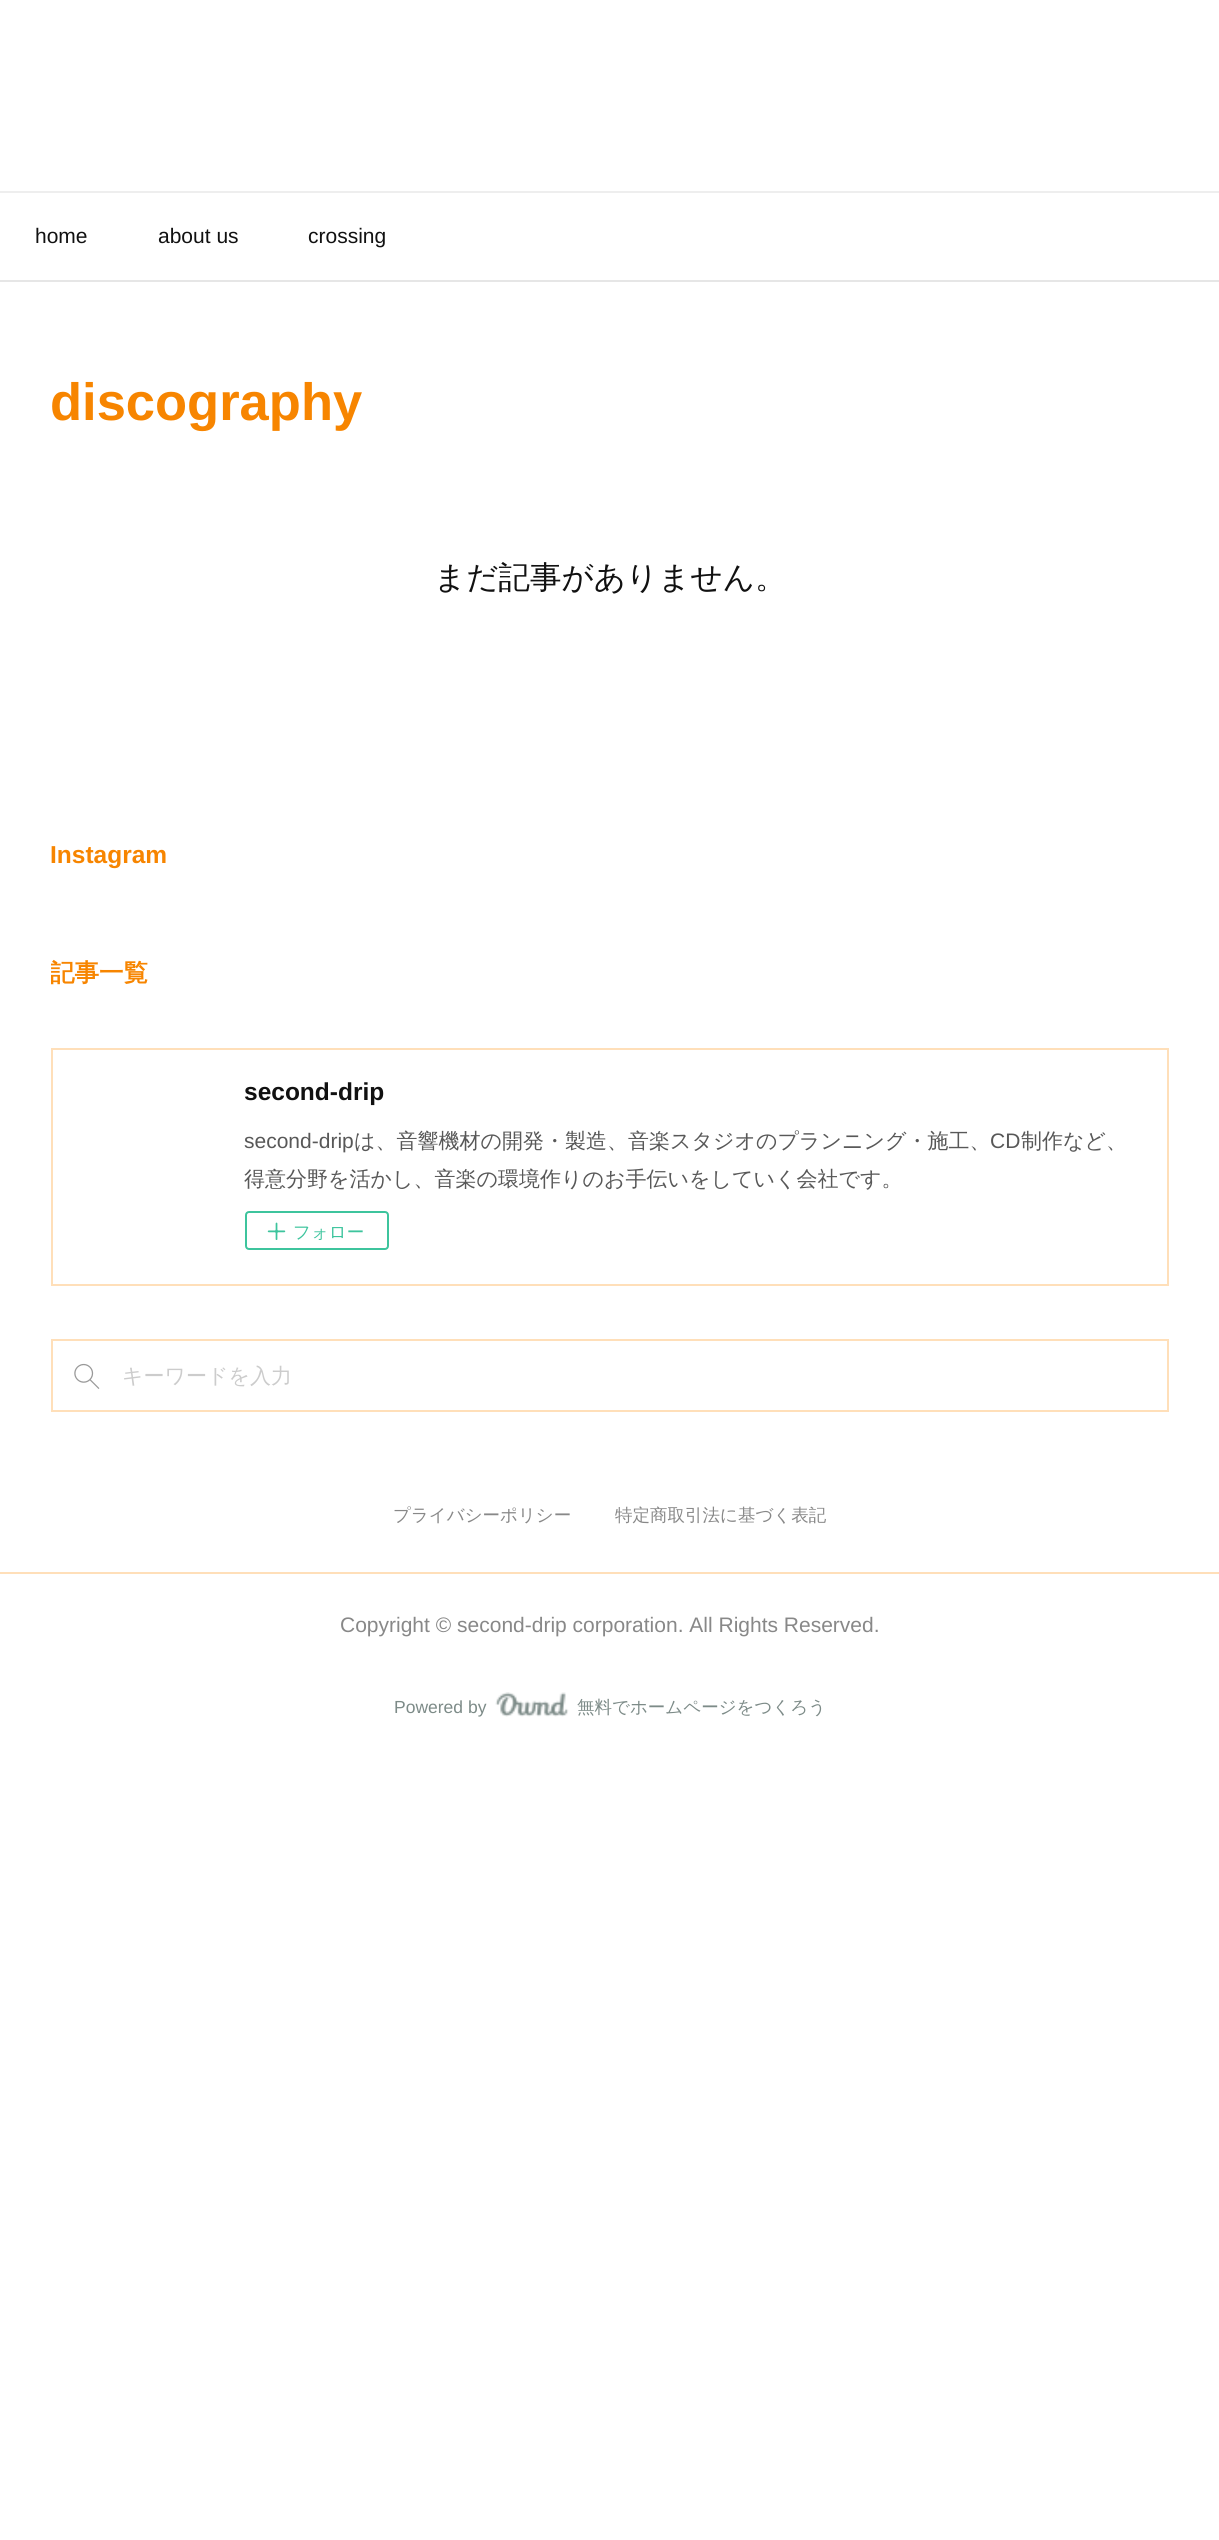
#include <cairo/cairo.h>
#include <math.h>
#include <stddef.h>

static cairo_t *cr;

static void use_color(int r, int g, int b) {
  cairo_set_source_rgb(cr, r / 255.0, g / 255.0, b / 255.0);
}

static void text(double x, double y, const char *s, const char *family, double size, int italic, int bold, int r, int g, int b) {
  cairo_select_font_face(cr, family, italic ? CAIRO_FONT_SLANT_ITALIC : CAIRO_FONT_SLANT_NORMAL,
    bold ? CAIRO_FONT_WEIGHT_BOLD : CAIRO_FONT_WEIGHT_NORMAL);
  cairo_set_font_size(cr, size);
  use_color(r, g, b);
  cairo_move_to(cr, x, y);
  cairo_show_text(cr, s);
}

static void box(double x, double y, double w, double h, int r, int g, int b) {
  use_color(r, g, b);
  cairo_rectangle(cr, x, y, w, h);
  cairo_fill(cr);
}

static void round_rect(double x, double y, double w, double h, double r) {
  cairo_new_sub_path(cr);
  cairo_arc(cr, x + w - r, y + h - r, r, 0, M_PI / 2);
  cairo_arc(cr, x + r, y + h - r, r, M_PI / 2, M_PI);
  cairo_arc(cr, x + r, y + r, r, M_PI, 1.5 * M_PI);
  cairo_arc(cr, x + w - r, y + r, r, 1.5 * M_PI, 2 * M_PI);
  cairo_close_path(cr);
}

static void picture(const char *path, double x, double y, double w, double h) {
  cairo_surface_t *image = cairo_image_surface_create_from_png(path);
  cairo_save(cr);
  cairo_set_source_surface(cr, image, x, y);
  cairo_rectangle(cr, x, y, w, h);
  cairo_fill(cr);
  cairo_restore(cr);
  cairo_surface_destroy(image);
}

static void draw(void) {
  use_color(255, 255, 255);
  cairo_paint(cr);
  box(0, 191, 1219, 2, 238, 238, 238);
  box(0, 280, 1219, 2, 230, 230, 230);
  cairo_rectangle(cr, 52, 1049, 1116, 236);
  use_color(255, 223, 185);
  cairo_stroke(cr);
  round_rect(246, 1212, 142, 37, 3);
  use_color(61, 196, 157);
  cairo_stroke(cr);
  picture("img_01.png", 267, 1222, 19, 18);
  cairo_rectangle(cr, 52, 1340, 1116, 71);
  use_color(255, 223, 185);
  cairo_stroke(cr);
  picture("img_02.png", 74, 1363, 26, 26);
  box(0, 1572, 1219, 2, 255, 223, 185);
  picture("img_03.png", 495, 1692, 74, 25);
  text(35, 243, "home", "Liberation Sans", 21, 0, 0, 17, 17, 17);
  text(158, 243, "about us", "Liberation Sans", 21, 0, 0, 17, 17, 17);
  text(308, 243, "crossing", "Liberation Sans", 21, 0, 0, 17, 17, 17);
  text(50, 420, "discography", "Liberation Sans", 52.5, 0, 1, 247, 133, 0);
  text(434, 588, "まだ記事がありません。", "WenQuanYi Zen Hei Medium", 31.5, 0, 0, 17, 17, 17);
  text(50, 863, "Instagram", "Liberation Sans", 24.5, 0, 1, 247, 133, 0);
  cairo_save(cr);
  cairo_rectangle(cr, 51, 952, 1118, 44);
  cairo_clip(cr);
  text(50, 981, "記事一覧", "WenQuanYi Zen Hei", 24.5, 0, 1, 247, 133, 0);
  cairo_restore(cr);
  text(244, 1100, "second-drip", "Liberation Sans", 24.5, 0, 1, 17, 17, 17);
  text(244, 1148, "second-drip", "Liberation Sans", 21, 0, 0, 88, 88, 88);
  text(354, 1148, "は、音響機材の開発・製造、音楽スタジオのプランニング・施工、", "WenQuanYi Zen Hei Medium", 21, 0, 0, 88, 88, 88);
  text(990, 1148, "CD", "Liberation Sans", 21, 0, 0, 88, 88, 88);
  text(1021, 1148, "制作など、", "WenQuanYi Zen Hei Medium", 21, 0, 0, 88, 88, 88);
  text(244, 1186, "得意分野を活かし、音楽の環境作りのお手伝いをしていく会社です。", "WenQuanYi Zen Hei Medium", 21, 0, 0, 88, 88, 88);
  text(293, 1238, "フォロー", "WenQuanYi Zen Hei Medium", 17.5, 0, 0, 61, 196, 157);
  text(122, 1383, "キーワードを入力", "WenQuanYi Zen Hei Medium", 21, 0, 0, 204, 204, 204);
  text(393, 1521, "プライバシーポリシー", "WenQuanYi Zen Hei Medium", 17.5, 0, 0, 136, 136, 136);
  text(615, 1521, "特定商取引法に基づく表記", "WenQuanYi Zen Hei Medium", 17.5, 0, 0, 136, 136, 136);
  text(340, 1632, "Copyright © second-drip corporation. All Rights Reserved.", "Liberation Sans", 21, 0, 0, 136, 136, 136);
  text(394, 1713, "Powered by", "Liberation Sans", 17.5, 0, 0, 125, 139, 136);
  text(577, 1713, "無料でホームページをつくろう", "WenQuanYi Zen Hei Medium", 17.5, 0, 0, 125, 139, 136);
}

int main(void) {
  cairo_surface_t *surface = cairo_image_surface_create(CAIRO_FORMAT_RGB24, 1219, 2540);
  cr = cairo_create(surface);
  cairo_font_options_t *options = cairo_font_options_create();
  cairo_font_options_set_hint_metrics(options, CAIRO_HINT_METRICS_OFF);
  cairo_font_options_set_hint_style(options, CAIRO_HINT_STYLE_NONE);
  cairo_set_font_options(cr, options);
  cairo_set_miter_limit(cr, 4);
  draw();
  cairo_surface_write_to_png(surface, "out.png");
  cairo_font_options_destroy(options);
  cairo_destroy(cr);
  cairo_surface_destroy(surface);
  return 0;
}
